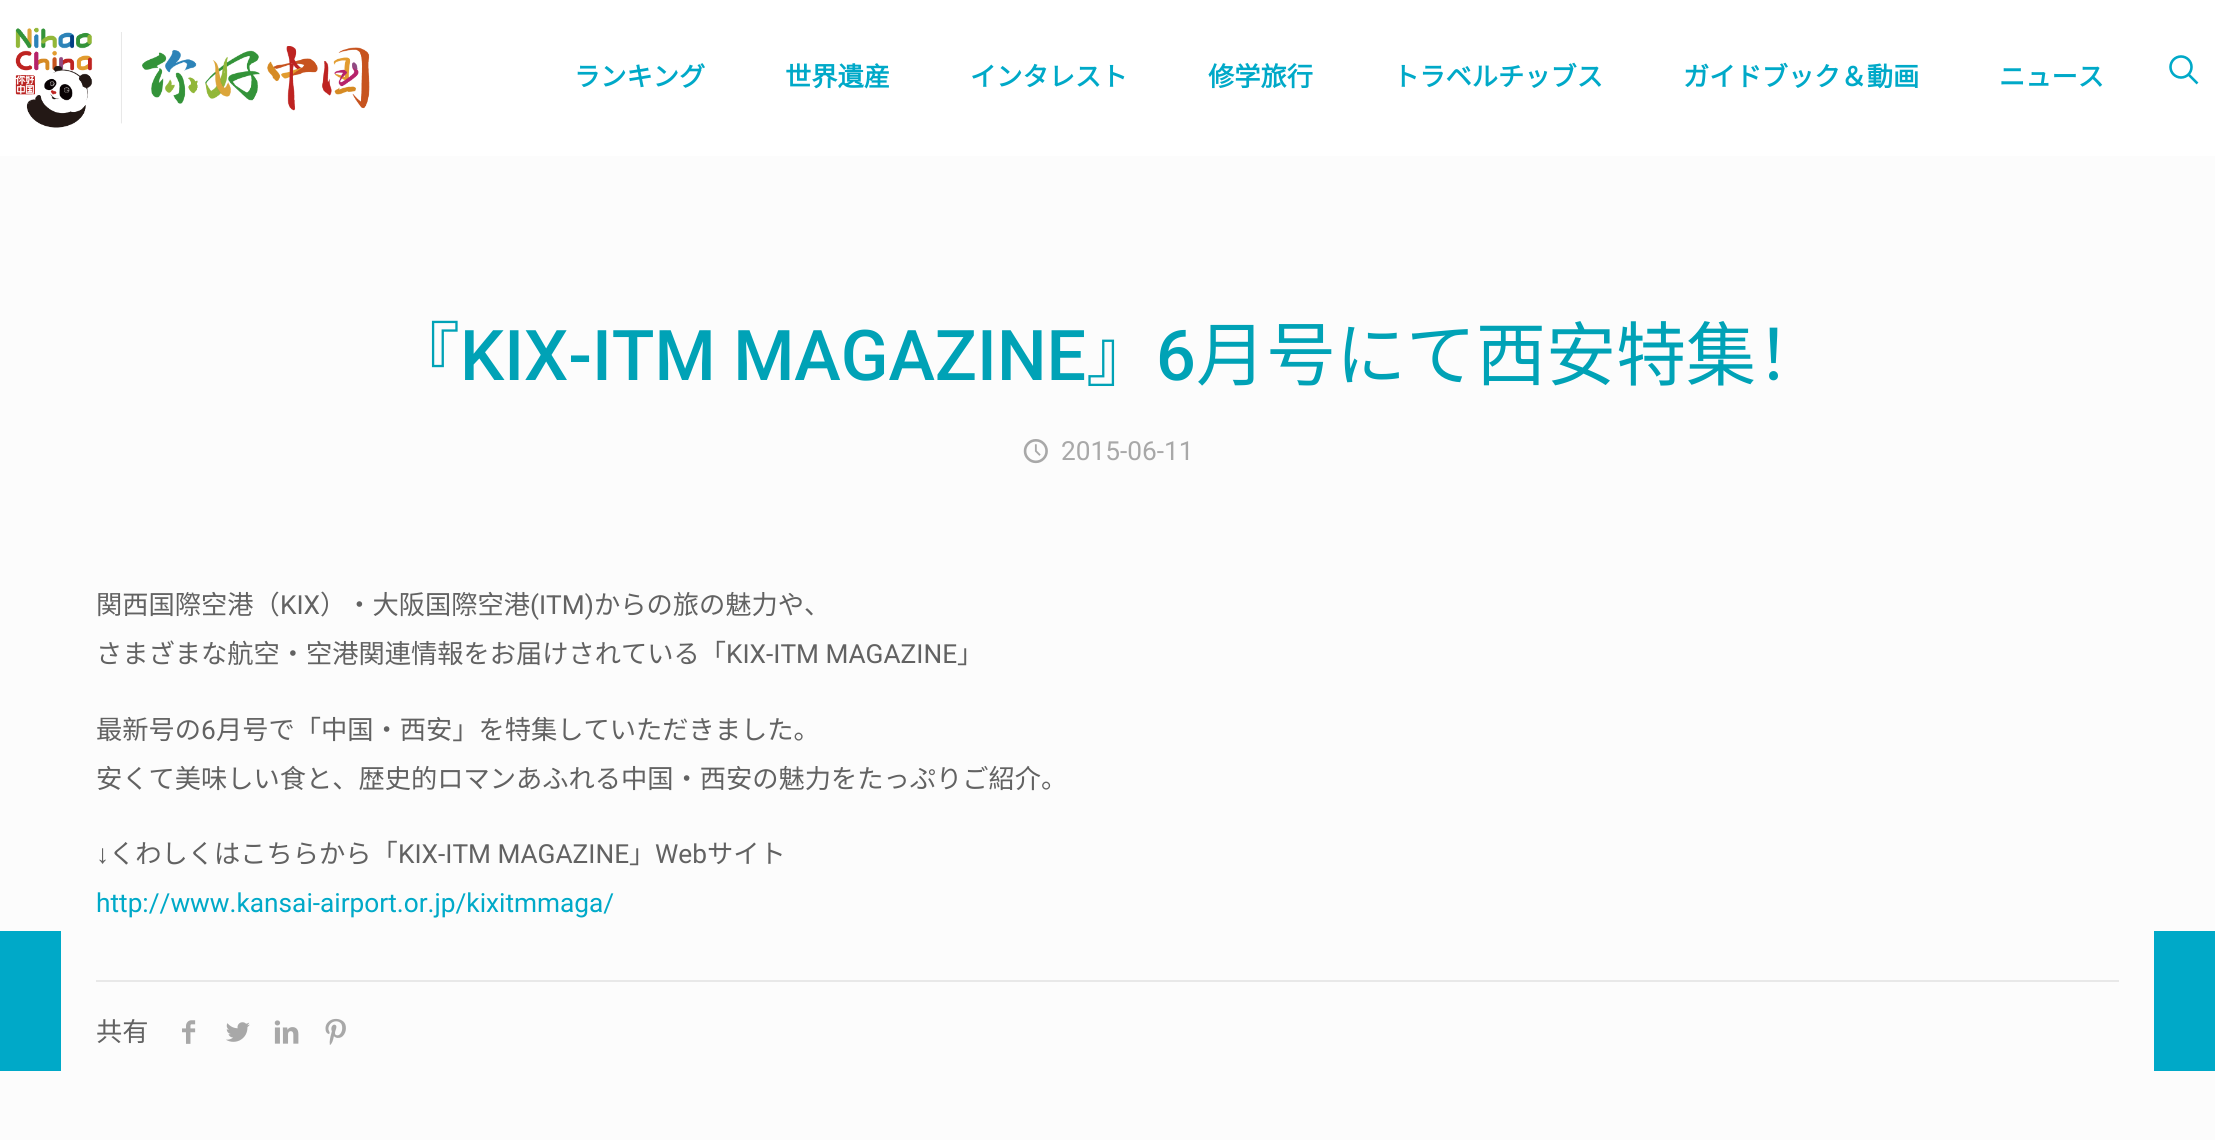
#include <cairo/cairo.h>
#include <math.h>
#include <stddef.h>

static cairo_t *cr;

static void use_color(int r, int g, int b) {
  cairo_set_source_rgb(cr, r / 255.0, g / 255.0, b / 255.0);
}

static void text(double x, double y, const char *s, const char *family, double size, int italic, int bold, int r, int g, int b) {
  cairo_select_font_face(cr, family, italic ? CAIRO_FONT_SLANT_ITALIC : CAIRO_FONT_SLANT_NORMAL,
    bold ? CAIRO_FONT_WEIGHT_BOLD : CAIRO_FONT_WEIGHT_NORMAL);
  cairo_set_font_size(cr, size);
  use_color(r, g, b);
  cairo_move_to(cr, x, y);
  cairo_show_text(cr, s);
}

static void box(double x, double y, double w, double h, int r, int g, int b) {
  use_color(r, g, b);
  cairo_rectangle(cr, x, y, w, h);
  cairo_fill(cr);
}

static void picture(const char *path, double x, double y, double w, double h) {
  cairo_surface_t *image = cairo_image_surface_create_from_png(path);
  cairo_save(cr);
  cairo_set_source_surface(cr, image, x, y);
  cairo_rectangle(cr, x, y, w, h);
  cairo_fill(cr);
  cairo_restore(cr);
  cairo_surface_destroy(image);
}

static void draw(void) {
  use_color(252, 252, 252);
  cairo_paint(cr);
  box(0, 931, 61, 140, 0, 169, 200);
  box(0, 0, 2215, 156, 255, 255, 255);
  picture("img_01.png", 15, 27, 355, 101);
  cairo_arc(cr, 2181, 67, 10.5, 0, 2 * M_PI);
  use_color(0, 169, 200);
  cairo_set_line_width(cr, 2.6);
  cairo_stroke(cr);
  cairo_new_path(cr);
  cairo_move_to(cr, 2188.5, 74.5);
  cairo_line_to(cr, 2197.5, 83.5);
  cairo_stroke(cr);
  picture("img_02.png", 1023, 439, 25, 25);
  box(96, 980, 2023, 2, 232, 232, 232);
  picture("img_03.png", 182, 1020, 14, 24);
  picture("img_04.png", 226, 1022, 24, 20);
  picture("img_05.png", 274, 1020, 25, 24);
  picture("img_06.png", 325, 1018, 21, 27);
  box(2154, 931, 61, 140, 0, 169, 200);
  text(574, 86, "ランキング", "Noto Sans CJK SC", 26.25, 0, 1, 0, 169, 200);
  text(785, 86, "世界遺産", "Noto Sans CJK SC", 26.25, 0, 1, 0, 169, 200);
  text(970, 86, "インタレスト", "Noto Sans CJK SC", 26.25, 0, 1, 0, 169, 200);
  text(1208, 86, "修学旅行", "Noto Sans CJK SC", 26.25, 0, 1, 0, 169, 200);
  text(1393, 86, "トラベルチッブス", "Noto Sans CJK SC", 26.25, 0, 1, 0, 169, 200);
  text(1683, 86, "ガイドブック＆動画", "Noto Sans CJK SC", 26.25, 0, 1, 0, 169, 200);
  text(1999, 86, "ニュース", "Noto Sans CJK SC", 26.25, 0, 1, 0, 169, 200);
  text(390, 380, "『", "Noto Sans CJK SC", 70, 0, 0, 0, 162, 182);
  text(460, 380, "KIX-ITM MAGAZINE", "Roboto Medium", 70, 0, 0, 0, 162, 182);
  text(1086, 380, "』", "Noto Sans CJK SC", 70, 0, 0, 0, 162, 182);
  text(1156, 380, "6", "Roboto Medium", 70, 0, 0, 0, 162, 182);
  text(1196, 380, "月号にて西安特集！", "Noto Sans CJK SC", 70, 0, 0, 0, 162, 182);
  text(1061, 460, "2015-06-11", "Roboto", 26.25, 0, 0, 168, 168, 168);
  text(96, 614, "関西国際空港（", "Noto Sans CJK SC", 26.25, 0, 0, 98, 98, 98);
  text(280, 614, "KIX", "Roboto", 26.25, 0, 0, 98, 98, 98);
  text(320, 614, "）・大阪国際空港", "Noto Sans CJK SC", 26.25, 0, 0, 98, 98, 98);
  text(530, 614, "(ITM)", "Roboto", 26.25, 0, 0, 98, 98, 98);
  text(594, 614, "からの旅の魅力や、", "Noto Sans CJK SC", 26.25, 0, 0, 98, 98, 98);
  text(96, 663, "さまざまな航空・空港関連情報をお届けされている「", "Noto Sans CJK SC", 26.25, 0, 0, 98, 98, 98);
  text(726, 663, "KIX-ITM MAGAZINE", "Roboto", 26.25, 0, 0, 98, 98, 98);
  text(957, 663, "」", "Noto Sans CJK SC", 26.25, 0, 0, 98, 98, 98);
  text(96, 739, "最新号の", "Noto Sans CJK SC", 26.25, 0, 0, 98, 98, 98);
  text(201, 739, "6", "Roboto", 26.25, 0, 0, 98, 98, 98);
  text(216, 739, "月号で「中国・西安」を特集していただきました。", "Noto Sans CJK SC", 26.25, 0, 0, 98, 98, 98);
  text(96, 788, "安くて美味しい食と、歴史的ロマンあふれる中国・西安の魅力をたっぷりご紹介。", "Noto Sans CJK SC", 26.25, 0, 0, 98, 98, 98);
  text(96, 863, "↓", "Liberation Sans", 26.25, 0, 0, 98, 98, 98);
  text(109, 863, "くわしくはこちらから「", "Noto Sans CJK SC", 26.25, 0, 0, 98, 98, 98);
  text(398, 863, "KIX-ITM MAGAZINE", "Roboto", 26.25, 0, 0, 98, 98, 98);
  text(629, 863, "」", "Noto Sans CJK SC", 26.25, 0, 0, 98, 98, 98);
  text(655, 863, "Web", "Roboto", 26.25, 0, 0, 98, 98, 98);
  text(707, 863, "サイト", "Noto Sans CJK SC", 26.25, 0, 0, 98, 98, 98);
  text(96, 912, "http://www.kansai-airport.or.jp/kixitmmaga/", "Roboto", 26.25, 0, 0, 0, 169, 200);
  text(96, 1041, "共有", "Noto Sans CJK SC", 26.25, 0, 0, 98, 98, 98);
}

int main(void) {
  cairo_surface_t *surface = cairo_image_surface_create(CAIRO_FORMAT_RGB24, 2215, 1140);
  cr = cairo_create(surface);
  cairo_font_options_t *options = cairo_font_options_create();
  cairo_font_options_set_hint_metrics(options, CAIRO_HINT_METRICS_OFF);
  cairo_font_options_set_hint_style(options, CAIRO_HINT_STYLE_NONE);
  cairo_set_font_options(cr, options);
  cairo_set_miter_limit(cr, 4);
  draw();
  cairo_surface_write_to_png(surface, "out.png");
  cairo_font_options_destroy(options);
  cairo_destroy(cr);
  cairo_surface_destroy(surface);
  return 0;
}
